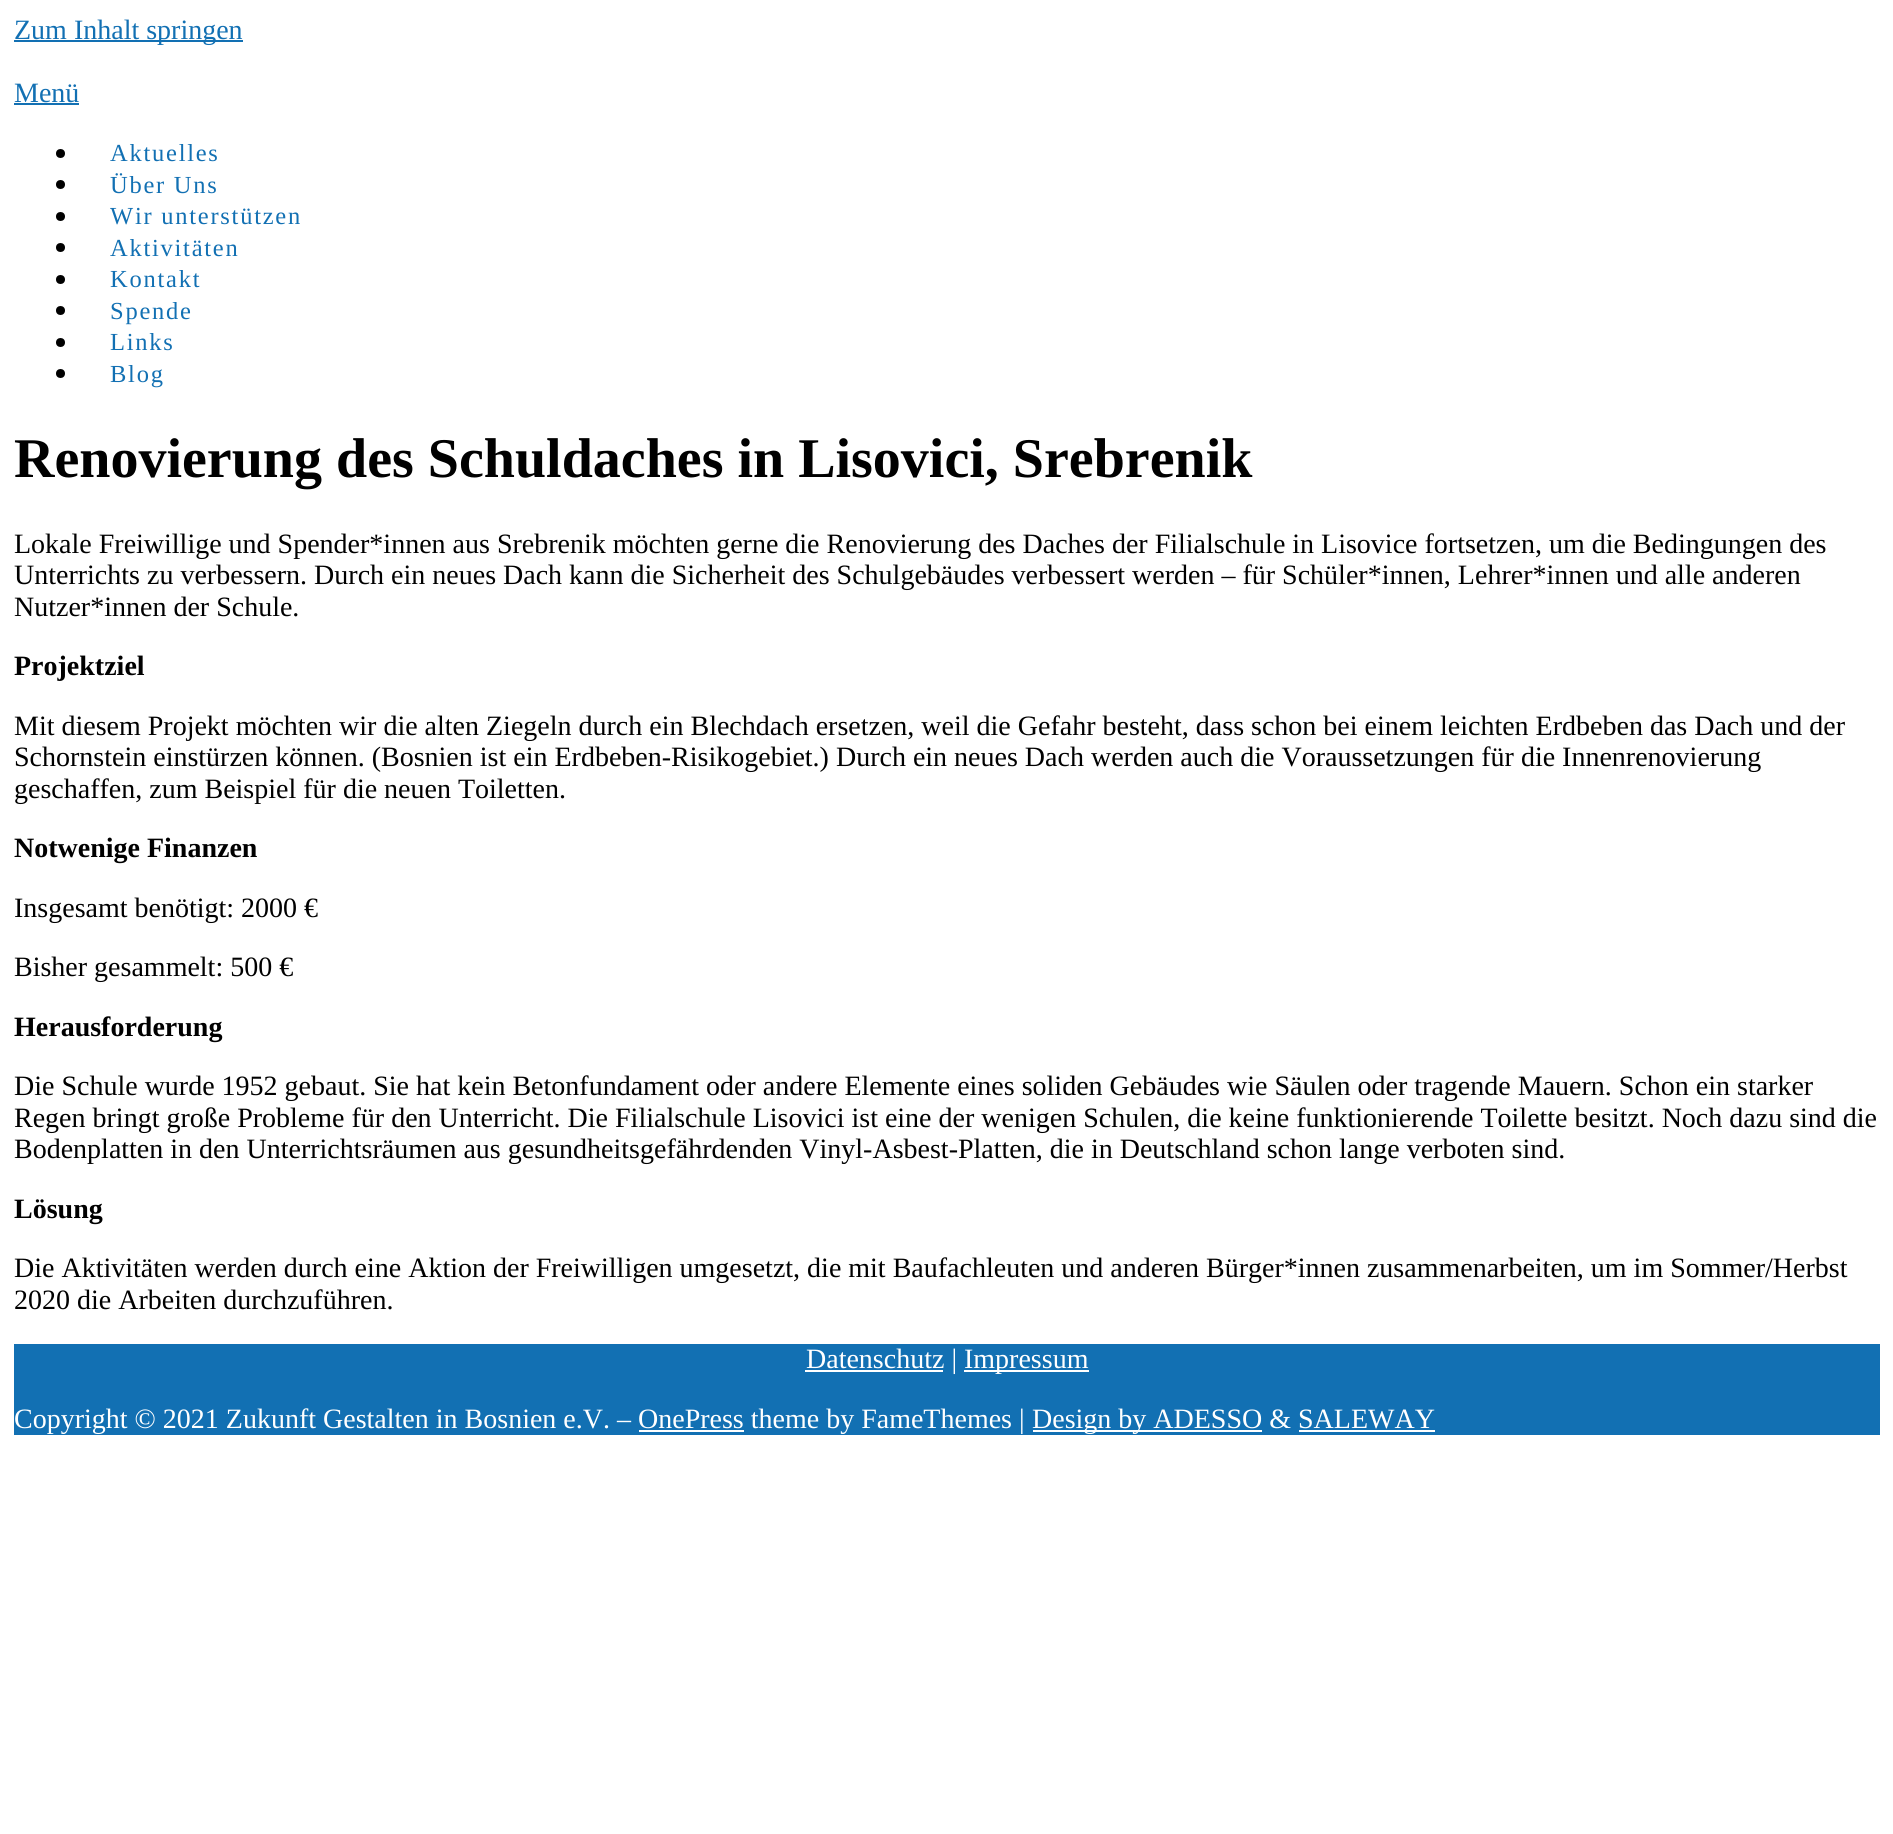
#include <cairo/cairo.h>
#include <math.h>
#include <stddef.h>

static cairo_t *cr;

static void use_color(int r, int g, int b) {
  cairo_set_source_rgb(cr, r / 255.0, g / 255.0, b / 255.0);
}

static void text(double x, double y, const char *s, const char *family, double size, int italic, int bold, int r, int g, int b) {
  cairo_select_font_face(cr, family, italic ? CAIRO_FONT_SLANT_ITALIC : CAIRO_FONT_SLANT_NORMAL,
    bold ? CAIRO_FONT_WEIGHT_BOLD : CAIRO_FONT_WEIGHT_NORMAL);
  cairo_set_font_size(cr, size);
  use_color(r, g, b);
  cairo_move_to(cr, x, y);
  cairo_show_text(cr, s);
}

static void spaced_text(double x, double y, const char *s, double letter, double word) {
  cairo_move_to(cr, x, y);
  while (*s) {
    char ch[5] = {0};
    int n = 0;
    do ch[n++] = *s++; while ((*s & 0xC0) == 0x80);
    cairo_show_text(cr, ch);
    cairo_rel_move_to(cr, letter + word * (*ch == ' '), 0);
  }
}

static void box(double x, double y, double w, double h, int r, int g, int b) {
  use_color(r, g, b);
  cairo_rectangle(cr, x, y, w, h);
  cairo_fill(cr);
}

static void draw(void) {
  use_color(255, 255, 255);
  cairo_paint(cr);
  box(14, 40, 229, 2, 18, 112, 179);
  box(14, 103, 65, 2, 18, 112, 179);
  use_color(0, 0, 0);
  cairo_arc(cr, 60.5, 153.5, 4.5, 0, 2 * M_PI);
  cairo_fill(cr);
  cairo_arc(cr, 60.5, 184.5, 4.5, 0, 2 * M_PI);
  cairo_fill(cr);
  cairo_arc(cr, 60.5, 216.5, 4.5, 0, 2 * M_PI);
  cairo_fill(cr);
  cairo_arc(cr, 60.5, 247.5, 4.5, 0, 2 * M_PI);
  cairo_fill(cr);
  cairo_arc(cr, 60.5, 279.5, 4.5, 0, 2 * M_PI);
  cairo_fill(cr);
  cairo_arc(cr, 60.5, 310.5, 4.5, 0, 2 * M_PI);
  cairo_fill(cr);
  cairo_arc(cr, 60.5, 342.5, 4.5, 0, 2 * M_PI);
  cairo_fill(cr);
  cairo_arc(cr, 60.5, 373.5, 4.5, 0, 2 * M_PI);
  cairo_fill(cr);
  box(14, 1344, 1866, 91, 18, 112, 179);
  box(805, 1370, 138, 2, 255, 255, 255);
  box(964, 1370, 125, 2, 255, 255, 255);
  box(1033, 1430, 229, 2, 255, 255, 255);
  box(639, 1430, 105, 2, 255, 255, 255);
  box(1299, 1430, 136, 2, 255, 255, 255);
  text(14, 39, "Zum Inhalt springen", "Liberation Serif", 28, 0, 0, 18, 112, 179);
  text(14, 102, "Menü", "Liberation Serif", 28, 0, 0, 18, 112, 179);
  cairo_set_font_size(cr, 24.5);
  spaced_text(110, 161, "Aktuelles", 1.75, 0);
  spaced_text(110, 193, "Über Uns", 1.75, 0);
  spaced_text(110, 224, "Wir unterstützen", 1.75, 0);
  spaced_text(110, 256, "Aktivitäten", 1.75, 0);
  spaced_text(110, 287, "Kontakt", 1.75, 0);
  spaced_text(110, 319, "Spende", 1.75, 0);
  spaced_text(110, 350, "Links", 1.75, 0);
  spaced_text(110, 382, "Blog", 1.75, 0);
  text(14, 477, "Renovierung des Schuldaches in Lisovici, Srebrenik", "Liberation Serif", 56, 0, 1, 0, 0, 0);
  text(14, 553, "Lokale Freiwillige und Spender*innen aus Srebrenik möchten gerne die Renovierung des Daches der Filialschule in Lisovice fortsetzen, um die Bedingungen des", "Liberation Serif", 28, 0, 0, 0, 0, 0);
  text(14, 584, "Unterrichts zu verbessern. Durch ein neues Dach kann die Sicherheit des Schulgebäudes verbessert werden – für Schüler*innen, Lehrer*innen und alle anderen", "Liberation Serif", 28, 0, 0, 0, 0, 0);
  text(14, 616, "Nutzer*innen der Schule.", "Liberation Serif", 28, 0, 0, 0, 0, 0);
  text(14, 675, "Projektziel", "Liberation Serif", 28, 0, 1, 0, 0, 0);
  text(14, 735, "Mit diesem Projekt möchten wir die alten Ziegeln durch ein Blechdach ersetzen, weil die Gefahr besteht, dass schon bei einem leichten Erdbeben das Dach und der", "Liberation Serif", 28, 0, 0, 0, 0, 0);
  text(14, 766, "Schornstein einstürzen können. (Bosnien ist ein Erdbeben-Risikogebiet.) Durch ein neues Dach werden auch die Voraussetzungen für die Innenrenovierung", "Liberation Serif", 28, 0, 0, 0, 0, 0);
  text(14, 798, "geschaffen, zum Beispiel für die neuen Toiletten.", "Liberation Serif", 28, 0, 0, 0, 0, 0);
  text(14, 857, "Notwenige Finanzen", "Liberation Serif", 28, 0, 1, 0, 0, 0);
  text(14, 917, "Insgesamt benötigt: 2000 €", "Liberation Serif", 28, 0, 0, 0, 0, 0);
  text(14, 976, "Bisher gesammelt: 500 €", "Liberation Serif", 28, 0, 0, 0, 0, 0);
  text(14, 1036, "Herausforderung", "Liberation Serif", 28, 0, 1, 0, 0, 0);
  text(14, 1095, "Die Schule wurde 1952 gebaut. Sie hat kein Betonfundament oder andere Elemente eines soliden Gebäudes wie Säulen oder tragende Mauern. Schon ein starker", "Liberation Serif", 28, 0, 0, 0, 0, 0);
  text(14, 1127, "Regen bringt große Probleme für den Unterricht. Die Filialschule Lisovici ist eine der wenigen Schulen, die keine funktionierende Toilette besitzt. Noch dazu sind die", "Liberation Serif", 28, 0, 0, 0, 0, 0);
  text(14, 1158, "Bodenplatten in den Unterrichtsräumen aus gesundheitsgefährdenden Vinyl-Asbest-Platten, die in Deutschland schon lange verboten sind.", "Liberation Serif", 28, 0, 0, 0, 0, 0);
  text(14, 1218, "Lösung", "Liberation Serif", 28, 0, 1, 0, 0, 0);
  text(14, 1277, "Die Aktivitäten werden durch eine Aktion der Freiwilligen umgesetzt, die mit Baufachleuten und anderen Bürger*innen zusammenarbeiten, um im Sommer/Herbst", "Liberation Serif", 28, 0, 0, 0, 0, 0);
  text(14, 1309, "2020 die Arbeiten durchzuführen.", "Liberation Serif", 28, 0, 0, 0, 0, 0);
  text(806, 1368, "Datenschutz |", "Liberation Serif", 28, 0, 0, 255, 255, 255);
  text(964, 1368, "Impressum", "Liberation Serif", 28, 0, 0, 255, 255, 255);
  text(14, 1428, "Copyright © 2021 Zukunft Gestalten in Bosnien e.V. – OnePress theme by FameThemes |", "Liberation Serif", 28, 0, 0, 255, 255, 255);
  text(1032, 1428, "Design by ADESSO & SALEWAY", "Liberation Serif", 28, 0, 0, 255, 255, 255);
}

int main(void) {
  cairo_surface_t *surface = cairo_image_surface_create(CAIRO_FORMAT_RGB24, 1893, 1834);
  cr = cairo_create(surface);
  cairo_font_options_t *options = cairo_font_options_create();
  cairo_font_options_set_hint_metrics(options, CAIRO_HINT_METRICS_OFF);
  cairo_font_options_set_hint_style(options, CAIRO_HINT_STYLE_NONE);
  cairo_set_font_options(cr, options);
  cairo_set_miter_limit(cr, 4);
  draw();
  cairo_surface_write_to_png(surface, "out.png");
  cairo_font_options_destroy(options);
  cairo_destroy(cr);
  cairo_surface_destroy(surface);
  return 0;
}
